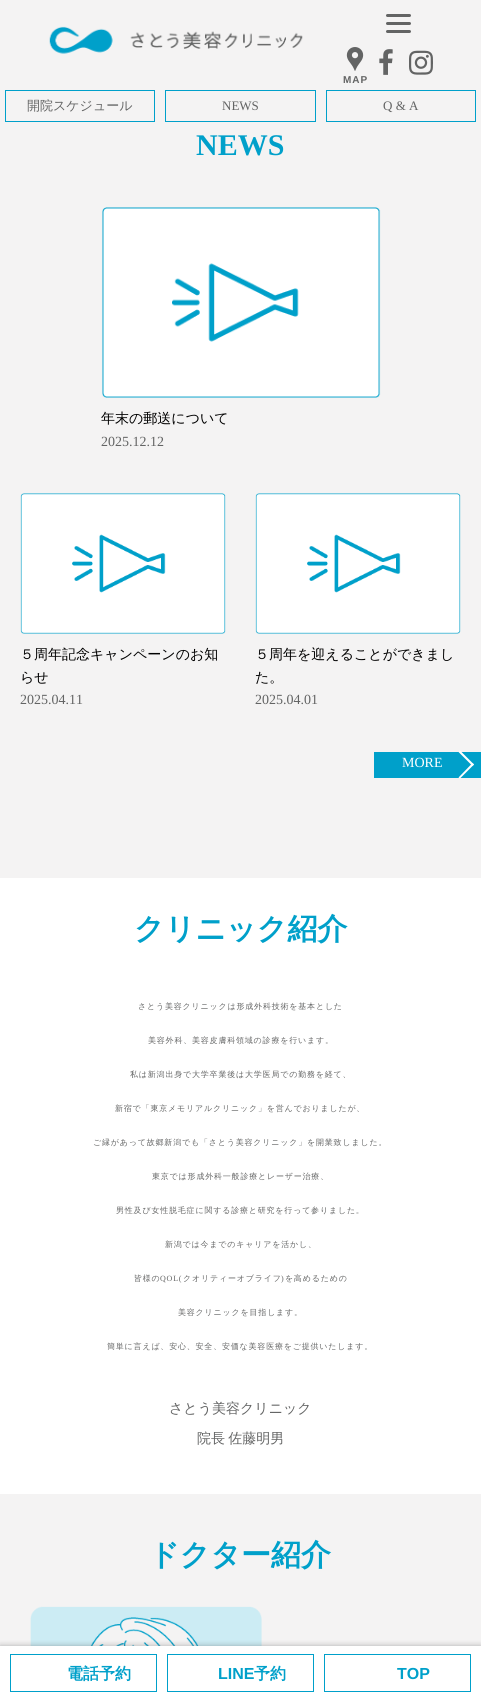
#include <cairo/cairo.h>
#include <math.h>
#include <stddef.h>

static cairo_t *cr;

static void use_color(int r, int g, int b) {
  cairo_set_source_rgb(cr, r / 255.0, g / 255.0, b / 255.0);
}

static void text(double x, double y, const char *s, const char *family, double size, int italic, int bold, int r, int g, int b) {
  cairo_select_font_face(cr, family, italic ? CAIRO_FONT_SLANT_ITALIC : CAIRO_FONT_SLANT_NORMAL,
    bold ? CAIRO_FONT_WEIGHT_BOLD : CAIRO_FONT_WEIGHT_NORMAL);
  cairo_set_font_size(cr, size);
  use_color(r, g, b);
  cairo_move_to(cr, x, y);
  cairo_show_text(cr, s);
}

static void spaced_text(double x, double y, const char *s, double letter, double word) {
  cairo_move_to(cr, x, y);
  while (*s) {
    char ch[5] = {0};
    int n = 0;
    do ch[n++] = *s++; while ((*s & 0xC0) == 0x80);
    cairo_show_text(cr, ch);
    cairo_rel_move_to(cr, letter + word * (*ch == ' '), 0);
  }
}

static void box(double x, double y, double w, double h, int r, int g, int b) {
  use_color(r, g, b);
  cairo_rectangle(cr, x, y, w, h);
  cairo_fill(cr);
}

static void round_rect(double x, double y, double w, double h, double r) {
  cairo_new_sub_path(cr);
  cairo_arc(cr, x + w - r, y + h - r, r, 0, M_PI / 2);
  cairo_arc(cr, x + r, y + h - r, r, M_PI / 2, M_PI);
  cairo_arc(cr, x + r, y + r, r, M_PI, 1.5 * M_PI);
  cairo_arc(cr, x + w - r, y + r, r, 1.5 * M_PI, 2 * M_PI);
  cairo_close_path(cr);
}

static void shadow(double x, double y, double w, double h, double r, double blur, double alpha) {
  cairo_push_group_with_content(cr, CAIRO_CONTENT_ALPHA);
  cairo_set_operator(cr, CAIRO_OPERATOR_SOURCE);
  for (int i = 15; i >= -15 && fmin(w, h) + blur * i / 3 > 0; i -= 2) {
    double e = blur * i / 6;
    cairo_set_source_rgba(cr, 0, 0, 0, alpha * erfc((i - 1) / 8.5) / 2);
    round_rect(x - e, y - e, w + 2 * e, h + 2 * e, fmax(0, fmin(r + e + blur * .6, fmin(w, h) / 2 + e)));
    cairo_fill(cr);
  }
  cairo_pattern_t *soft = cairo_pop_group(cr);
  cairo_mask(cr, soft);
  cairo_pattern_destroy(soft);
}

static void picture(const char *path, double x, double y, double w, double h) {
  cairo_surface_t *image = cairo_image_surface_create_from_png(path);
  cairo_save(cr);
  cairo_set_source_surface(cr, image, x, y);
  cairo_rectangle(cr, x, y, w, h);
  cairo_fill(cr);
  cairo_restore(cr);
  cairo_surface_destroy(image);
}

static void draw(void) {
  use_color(255, 255, 255);
  cairo_paint(cr);
  box(0, 0, 481, 878, 244, 243, 243);
  picture("img_01.png", 49, 26, 254, 28);
  use_color(99, 100, 100);
  round_rect(386, 22, 25, 3, 1.5);
  cairo_fill(cr);
  round_rect(386, 14, 25, 3, 1.5);
  cairo_fill(cr);
  round_rect(386, 30, 25, 3, 1.5);
  cairo_fill(cr);
  picture("img_02.png", 379, 49, 14, 26);
  picture("img_03.png", 409, 50, 24, 25);
  picture("img_04.png", 346, 47, 18, 24);
  cairo_rectangle(cr, 5.5, 90.5, 149, 31);
  use_color(0, 160, 202);
  cairo_set_line_width(cr, 1);
  cairo_stroke(cr);
  cairo_rectangle(cr, 165.5, 90.5, 150, 31);
  cairo_stroke(cr);
  cairo_rectangle(cr, 326.5, 90.5, 149, 31);
  cairo_stroke(cr);
  picture("img_05.png", 102, 207, 279, 191);
  picture("img_06.png", 20, 493, 206, 141);
  picture("img_06.png", 255, 493, 206, 141);
  box(374, 752, 107, 26, 0, 160, 202);
  use_color(255, 255, 255);
  cairo_new_path(cr);
  cairo_move_to(cr, 460, 750.5);
  cairo_line_to(cr, 474, 764.5);
  cairo_line_to(cr, 472.5, 766);
  cairo_line_to(cr, 458.5, 752);
  cairo_close_path(cr);
  cairo_fill(cr);
  cairo_new_path(cr);
  cairo_move_to(cr, 472.5, 763);
  cairo_line_to(cr, 474, 764.5);
  cairo_line_to(cr, 460, 778.5);
  cairo_line_to(cr, 458.5, 777.5);
  cairo_close_path(cr);
  cairo_fill(cr);
  box(0, 1494, 481, 152, 244, 243, 243);
  picture("img_07.png", 30, 1606, 232, 40);
  use_color(0, 0, 0);
  shadow(0, 1646, 481, 54, 0, 3, 0.3);
  box(0, 1646, 481, 54, 255, 255, 255);
  cairo_rectangle(cr, 10.5, 1654.5, 146, 37);
  use_color(0, 160, 202);
  cairo_stroke(cr);
  cairo_rectangle(cr, 167.5, 1654.5, 146, 37);
  cairo_stroke(cr);
  cairo_rectangle(cr, 324.5, 1654.5, 146, 37);
  cairo_stroke(cr);
  cairo_select_font_face(cr, "Liberation Sans", CAIRO_FONT_SLANT_NORMAL, CAIRO_FONT_WEIGHT_BOLD);
  cairo_set_font_size(cr, 10);
  use_color(99, 100, 100);
  spaced_text(343, 83, "MAP", 1, 0);
  text(27, 110, "開院スケジュール", "WenQuanYi Zen Hei Medium", 13, 0, 0, 99, 100, 100);
  text(222, 110, "NEWS", "Liberation Serif", 13, 0, 0, 99, 100, 100);
  text(383, 110, "Q & A", "Liberation Serif", 13, 0, 0, 99, 100, 100);
  text(196, 155, "NEWS", "Liberation Serif", 30, 0, 1, 0, 160, 202);
  text(101, 423, "年末の郵送について", "WenQuanYi Zen Hei Medium", 14, 0, 0, 0, 0, 0);
  text(101, 446, "2025.12.12", "Liberation Serif", 14, 0, 0, 99, 100, 100);
  text(20, 659, "５周年記念キャンペーンのお知", "WenQuanYi Zen Hei Medium", 14, 0, 0, 0, 0, 0);
  text(20, 682, "らせ", "WenQuanYi Zen Hei Medium", 14, 0, 0, 0, 0, 0);
  text(20, 704, "2025.04.11", "Liberation Serif", 14, 0, 0, 99, 100, 100);
  text(255, 659, "５周年を迎えることができまし", "WenQuanYi Zen Hei Medium", 14, 0, 0, 0, 0, 0);
  text(255, 682, "た。", "WenQuanYi Zen Hei Medium", 14, 0, 0, 0, 0, 0);
  text(255, 704, "2025.04.01", "Liberation Serif", 14, 0, 0, 99, 100, 100);
  text(402, 767, "MORE", "Liberation Serif", 14, 0, 0, 255, 255, 255);
  text(134, 939, "クリニック紹介", "WenQuanYi Zen Hei", 30, 0, 1, 0, 160, 202);
  cairo_select_font_face(cr, "WenQuanYi Zen Hei Medium", CAIRO_FONT_SLANT_NORMAL, CAIRO_FONT_WEIGHT_NORMAL);
  cairo_set_font_size(cr, 8);
  use_color(99, 100, 100);
  spaced_text(138, 1009, "さとう美容クリニックは形成外科技術を基本とした", 0.8, 0);
  spaced_text(148, 1043, "美容外科、美容皮膚科領域の診療を行います。", 0.8, 0);
  spaced_text(130, 1077, "私は新潟出身で大学卒業後は大学医局での勤務を経て、", 0.8, 0);
  spaced_text(115, 1111, "新宿で「東京メモリアルクリニック」を営んでおりましたが、", 0.8, 0);
  spaced_text(93, 1145, "ご縁があって故郷新潟でも「さとう美容クリニック」を開業致しました。", 0.8, 0);
  spaced_text(152, 1179, "東京では形成外科一般診療とレーザー治療、", 0.8, 0);
  spaced_text(116, 1213, "男性及び女性脱毛症に関する診療と研究を行って参りました。", 0.8, 0);
  spaced_text(165, 1247, "新潟では今までのキャリアを活かし、", 0.8, 0);
  spaced_text(134, 1281, "皆様の", 0.8, 0);
  cairo_select_font_face(cr, "Liberation Serif", CAIRO_FONT_SLANT_NORMAL, CAIRO_FONT_WEIGHT_NORMAL);
  spaced_text(160, 1281, "QOL(", 0.8, 0);
  cairo_select_font_face(cr, "WenQuanYi Zen Hei Medium", CAIRO_FONT_SLANT_NORMAL, CAIRO_FONT_WEIGHT_NORMAL);
  spaced_text(183, 1281, "クオリティーオブライフ を高めるための", 0.8, 0);
  cairo_select_font_face(cr, "Liberation Serif", CAIRO_FONT_SLANT_NORMAL, CAIRO_FONT_WEIGHT_NORMAL);
  spaced_text(281, 1281, ")", 0.8, 0);
  cairo_select_font_face(cr, "WenQuanYi Zen Hei Medium", CAIRO_FONT_SLANT_NORMAL, CAIRO_FONT_WEIGHT_NORMAL);
  spaced_text(178, 1315, "美容クリニックを目指します。", 0.8, 0);
  spaced_text(107, 1349, "簡単に言えば、安心、安全、安価な美容医療をご提供いたします。", 0.8, 0);
  text(169, 1413, "さとう美容クリニック", "WenQuanYi Zen Hei Medium", 14, 0, 0, 99, 100, 100);
  spaced_text(197, 1443, "院⻑ 佐藤明男", 0, -1);
  text(149, 1565, "ドクター紹介", "WenQuanYi Zen Hei", 30, 0, 1, 0, 160, 202);
  text(67, 1679, "電話予約", "WenQuanYi Zen Hei", 16, 0, 1, 0, 160, 202);
  text(218, 1679, "LINE", "Liberation Sans", 16, 0, 1, 0, 160, 202);
  text(254, 1679, "予約", "WenQuanYi Zen Hei", 16, 0, 1, 0, 160, 202);
  text(397, 1679, "TOP", "Liberation Sans", 16, 0, 1, 0, 160, 202);
}

int main(void) {
  cairo_surface_t *surface = cairo_image_surface_create(CAIRO_FORMAT_RGB24, 481, 1700);
  cr = cairo_create(surface);
  cairo_font_options_t *options = cairo_font_options_create();
  cairo_font_options_set_hint_metrics(options, CAIRO_HINT_METRICS_OFF);
  cairo_font_options_set_hint_style(options, CAIRO_HINT_STYLE_NONE);
  cairo_set_font_options(cr, options);
  cairo_set_miter_limit(cr, 4);
  draw();
  cairo_surface_write_to_png(surface, "out.png");
  cairo_font_options_destroy(options);
  cairo_destroy(cr);
  cairo_surface_destroy(surface);
  return 0;
}
